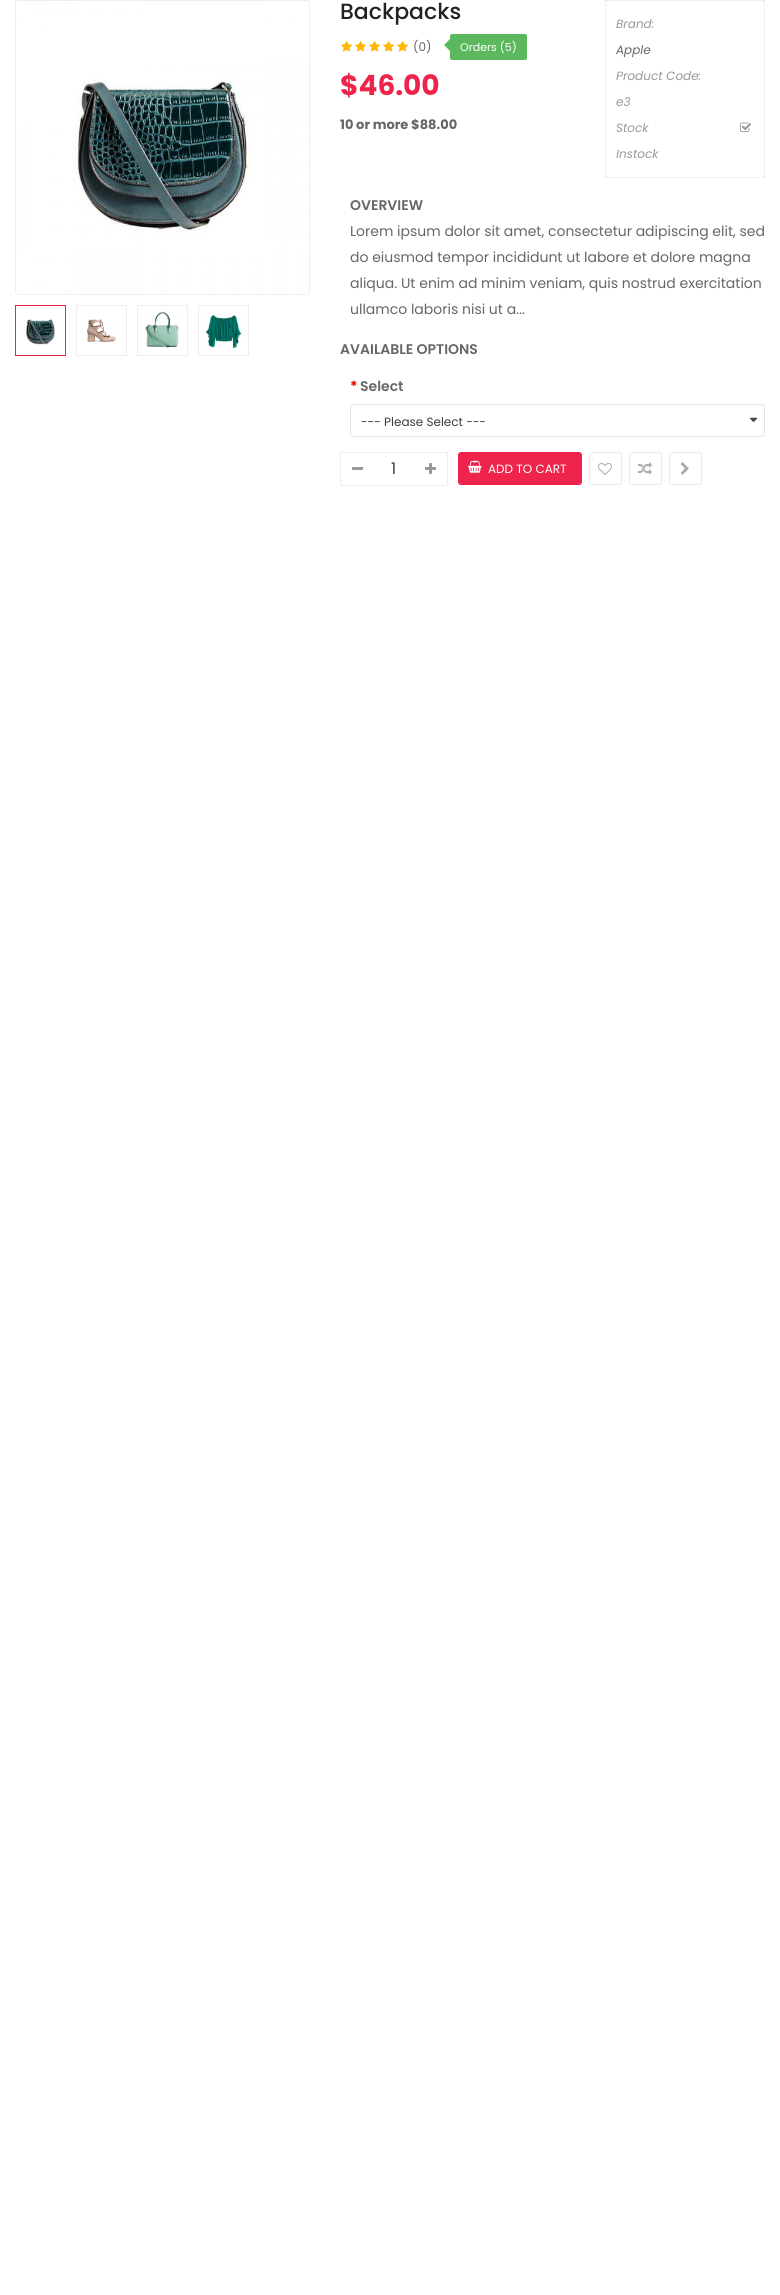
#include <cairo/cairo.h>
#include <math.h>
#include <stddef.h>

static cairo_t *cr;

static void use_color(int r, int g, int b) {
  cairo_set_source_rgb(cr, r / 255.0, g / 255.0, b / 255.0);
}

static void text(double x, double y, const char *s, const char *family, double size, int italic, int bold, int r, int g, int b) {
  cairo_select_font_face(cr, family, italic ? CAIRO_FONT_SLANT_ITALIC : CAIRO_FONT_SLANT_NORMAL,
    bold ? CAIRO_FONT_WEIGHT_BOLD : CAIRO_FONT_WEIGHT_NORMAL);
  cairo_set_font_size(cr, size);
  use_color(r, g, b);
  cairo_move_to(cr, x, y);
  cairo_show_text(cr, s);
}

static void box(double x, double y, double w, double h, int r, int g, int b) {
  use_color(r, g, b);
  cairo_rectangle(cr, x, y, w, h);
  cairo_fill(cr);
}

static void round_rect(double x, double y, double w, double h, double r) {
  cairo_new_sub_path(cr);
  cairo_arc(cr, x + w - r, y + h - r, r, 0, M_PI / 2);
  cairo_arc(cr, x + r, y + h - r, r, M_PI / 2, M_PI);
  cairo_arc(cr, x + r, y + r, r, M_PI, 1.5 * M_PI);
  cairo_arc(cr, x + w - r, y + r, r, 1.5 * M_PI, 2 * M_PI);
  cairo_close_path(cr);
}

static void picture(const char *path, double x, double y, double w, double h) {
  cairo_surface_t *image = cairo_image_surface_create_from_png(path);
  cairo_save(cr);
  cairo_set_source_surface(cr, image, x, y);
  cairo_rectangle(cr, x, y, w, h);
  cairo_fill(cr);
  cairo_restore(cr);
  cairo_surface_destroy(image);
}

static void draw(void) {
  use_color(255, 255, 255);
  cairo_paint(cr);
  round_rect(15.5, 0.5, 294, 294, 2.5);
  use_color(238, 238, 238);
  cairo_set_line_width(cr, 1);
  cairo_stroke(cr);
  picture("img_01.png", 16, 1, 293, 293);
  cairo_rectangle(cr, 15.5, 305.5, 50, 50);
  use_color(239, 36, 77);
  cairo_stroke(cr);
  picture("img_02.png", 26, 319, 29, 26);
  cairo_rectangle(cr, 76.5, 305.5, 50, 50);
  use_color(238, 238, 238);
  cairo_stroke(cr);
  picture("img_03.png", 87, 319, 29, 23);
  cairo_rectangle(cr, 137.5, 305.5, 50, 50);
  cairo_stroke(cr);
  picture("img_04.png", 145, 311, 34, 37);
  cairo_rectangle(cr, 198.5, 305.5, 50, 50);
  cairo_stroke(cr);
  picture("img_05.png", 205, 314, 37, 34);
  picture("img_06.png", 341, 41, 12, 11);
  picture("img_06.png", 355, 41, 12, 11);
  picture("img_06.png", 369, 41, 12, 11);
  picture("img_06.png", 383, 41, 12, 11);
  picture("img_06.png", 397, 41, 12, 11);
  use_color(92, 184, 92);
  round_rect(450, 34, 77, 26, 2);
  cairo_fill(cr);
  cairo_new_path(cr);
  cairo_move_to(cr, 451, 38);
  cairo_line_to(cr, 451, 52);
  cairo_line_to(cr, 444, 45);
  cairo_close_path(cr);
  cairo_fill(cr);
  cairo_new_path(cr);
  cairo_move_to(cr, 605, 0.5);
  cairo_line_to(cr, 765, 0.5);
  use_color(221, 221, 221);
  cairo_set_dash(cr, (double[]){1, 1}, 2, 0);
  cairo_stroke(cr);
  cairo_new_path(cr);
  cairo_move_to(cr, 764.5, 0);
  cairo_line_to(cr, 764.5, 178);
  cairo_stroke(cr);
  cairo_new_path(cr);
  cairo_move_to(cr, 605, 177.5);
  cairo_line_to(cr, 765, 177.5);
  cairo_stroke(cr);
  cairo_new_path(cr);
  cairo_move_to(cr, 605.5, 0);
  cairo_line_to(cr, 605.5, 178);
  cairo_stroke(cr);
  picture("img_07.png", 740, 122, 12, 10);
  picture("img_08.png", 750, 417, 8, 5);
  round_rect(350.5, 404.5, 414, 32, 2.5);
  use_color(229, 229, 229);
  cairo_set_dash(cr, NULL, 0, 0);
  cairo_stroke(cr);
  cairo_rectangle(cr, 340.5, 452.5, 107, 33);
  use_color(238, 238, 238);
  cairo_stroke(cr);
  box(352, 467, 11, 3, 153, 153, 153);
  picture("img_09.png", 425, 463, 11, 11);
  use_color(239, 36, 77);
  round_rect(458, 452, 124, 33, 3);
  cairo_fill(cr);
  picture("img_10.png", 468, 460, 14, 13);
  round_rect(589.5, 452.5, 32, 32, 2.5);
  use_color(234, 234, 234);
  cairo_stroke(cr);
  picture("img_11.png", 598, 463, 14, 12);
  round_rect(629.5, 452.5, 32, 32, 2.5);
  cairo_stroke(cr);
  picture("img_12.png", 638, 462, 14, 13);
  round_rect(669.5, 452.5, 32, 32, 2.5);
  cairo_stroke(cr);
  picture("img_13.png", 680, 462, 9, 13);
  text(340, 19, "Backpacks", "Poppins Medium", 22, 0, 0, 34, 34, 34);
  text(413, 51, "(0)", "Poppins", 12, 0, 0, 102, 102, 102);
  text(460, 51, "Orders (5)", "Poppins", 11, 0, 0, 255, 255, 255);
  text(340, 95, "$46.00", "Poppins", 28, 0, 1, 239, 36, 77);
  text(340, 129, "10 or more $88.00", "Poppins", 13, 0, 1, 102, 102, 102);
  text(616, 28, "Brand:", "Poppins", 12, 1, 0, 153, 153, 153);
  text(616, 54, "Apple", "Poppins", 12, 1, 0, 102, 102, 102);
  text(616, 80, "Product Code:", "Poppins", 12, 1, 0, 153, 153, 153);
  text(616, 106, "e3", "Poppins", 12, 1, 0, 153, 153, 153);
  text(616, 132, "Stock", "Poppins", 12, 1, 0, 153, 153, 153);
  text(616, 158, "Instock", "Poppins", 12, 1, 0, 153, 153, 153);
  text(350, 210, "OVERVIEW", "Poppins SemiBold", 14, 0, 0, 102, 102, 102);
  text(350, 236, "Lorem ipsum dolor sit amet, consectetur adipiscing elit, sed", "Poppins", 14, 0, 0, 102, 102, 102);
  text(350, 262, "do eiusmod tempor incididunt ut labore et dolore magna", "Poppins", 14, 0, 0, 102, 102, 102);
  text(350, 288, "aliqua. Ut enim ad minim veniam, quis nostrud exercitation", "Poppins", 14, 0, 0, 102, 102, 102);
  text(350, 314, "ullamco laboris nisi ut a...", "Poppins", 14, 0, 0, 102, 102, 102);
  text(340, 354, "AVAILABLE OPTIONS", "Poppins SemiBold", 14, 0, 0, 102, 102, 102);
  text(350, 391, "*", "Poppins", 14, 0, 1, 255, 0, 0);
  text(360, 391, "Select", "Poppins SemiBold", 14, 0, 0, 102, 102, 102);
  text(361, 426, "--- Please Select ---", "Poppins", 12, 0, 0, 61, 61, 61);
  text(391, 474, "1", "Poppins", 16, 0, 0, 61, 61, 61);
  text(488, 473, "ADD TO CART", "Poppins", 12, 0, 0, 255, 255, 255);
}

int main(void) {
  cairo_surface_t *surface = cairo_image_surface_create(CAIRO_FORMAT_RGB24, 780, 2295);
  cr = cairo_create(surface);
  cairo_font_options_t *options = cairo_font_options_create();
  cairo_font_options_set_hint_metrics(options, CAIRO_HINT_METRICS_OFF);
  cairo_font_options_set_hint_style(options, CAIRO_HINT_STYLE_NONE);
  cairo_set_font_options(cr, options);
  cairo_set_miter_limit(cr, 4);
  draw();
  cairo_surface_write_to_png(surface, "out.png");
  cairo_font_options_destroy(options);
  cairo_destroy(cr);
  cairo_surface_destroy(surface);
  return 0;
}
